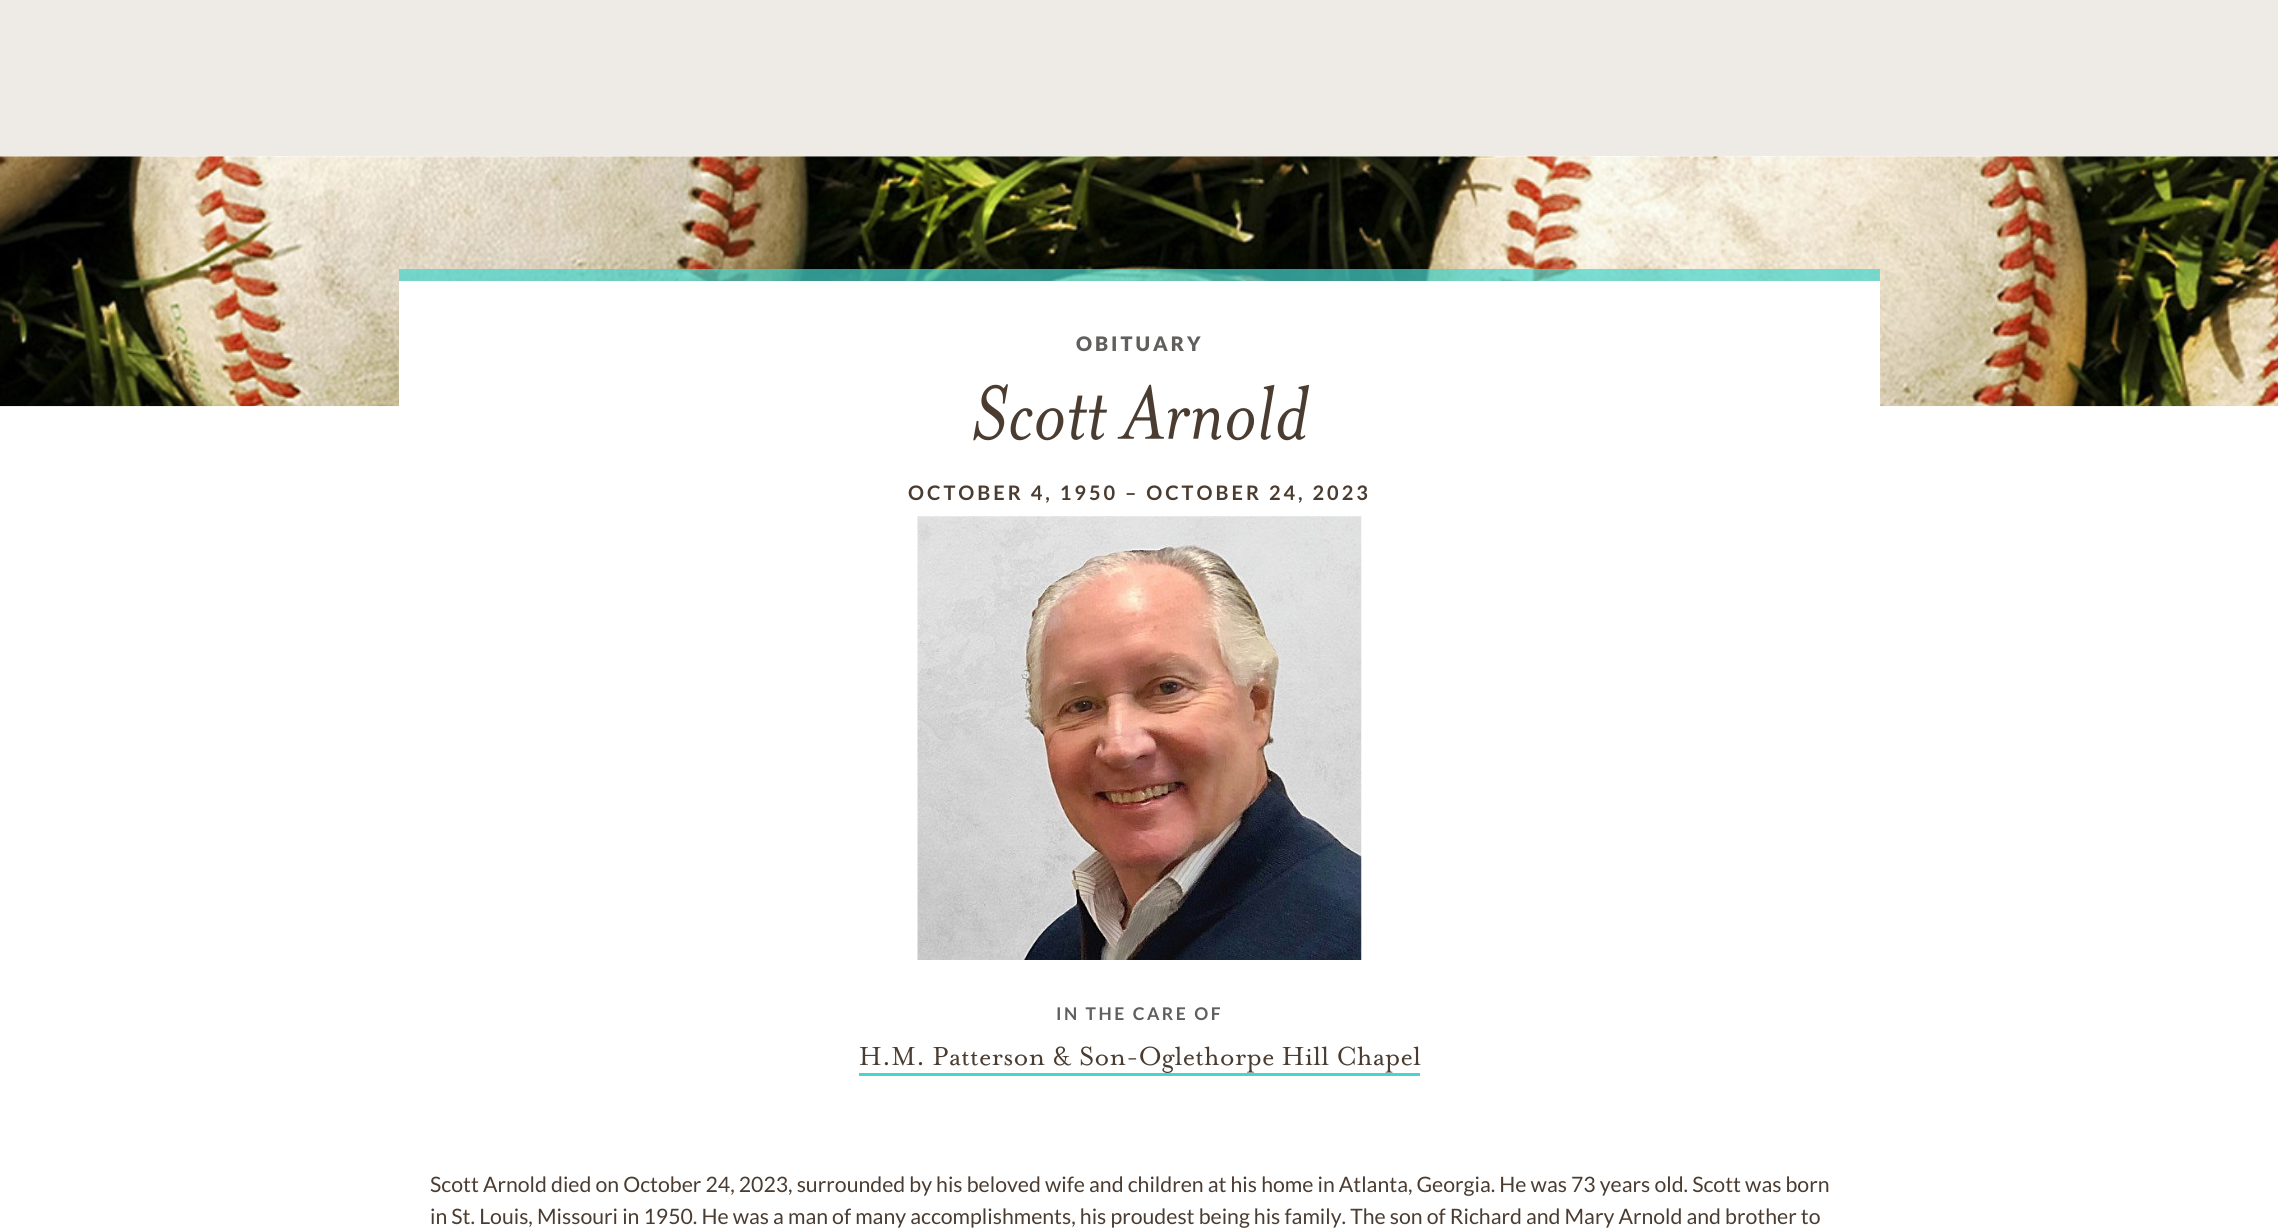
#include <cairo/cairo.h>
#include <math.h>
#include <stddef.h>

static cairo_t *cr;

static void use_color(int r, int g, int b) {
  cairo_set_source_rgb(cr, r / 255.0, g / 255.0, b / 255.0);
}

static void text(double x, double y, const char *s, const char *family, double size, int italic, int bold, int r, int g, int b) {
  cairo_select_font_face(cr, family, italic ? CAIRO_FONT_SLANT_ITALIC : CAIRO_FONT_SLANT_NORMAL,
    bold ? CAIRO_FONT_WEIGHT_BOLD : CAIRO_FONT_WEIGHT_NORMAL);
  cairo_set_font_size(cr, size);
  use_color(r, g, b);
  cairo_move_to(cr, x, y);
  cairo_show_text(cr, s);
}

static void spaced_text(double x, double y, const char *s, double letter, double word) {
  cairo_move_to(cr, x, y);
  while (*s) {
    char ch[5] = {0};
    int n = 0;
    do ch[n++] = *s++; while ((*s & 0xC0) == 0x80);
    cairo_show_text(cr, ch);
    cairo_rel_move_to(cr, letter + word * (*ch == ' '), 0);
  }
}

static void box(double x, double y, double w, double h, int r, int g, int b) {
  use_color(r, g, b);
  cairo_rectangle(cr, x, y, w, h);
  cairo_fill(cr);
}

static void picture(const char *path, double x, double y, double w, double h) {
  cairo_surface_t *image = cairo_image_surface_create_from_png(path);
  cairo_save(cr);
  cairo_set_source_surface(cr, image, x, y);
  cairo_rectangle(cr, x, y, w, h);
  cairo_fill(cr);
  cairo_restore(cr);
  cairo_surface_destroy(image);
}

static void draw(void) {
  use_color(255, 255, 255);
  cairo_paint(cr);
  box(0, 0, 2278, 156, 238, 235, 230);
  picture("img_01.png", 0, 156, 2278, 251);
  box(399, 281, 1481, 126, 255, 255, 255);
  cairo_set_source_rgba(cr, 0.278, 0.835, 0.804, 0.7);
  cairo_rectangle(cr, 399, 269, 1481, 12);
  cairo_fill(cr);
  picture("img_02.png", 973, 384, 337, 57);
  picture("img_03.png", 917, 516, 445, 444);
  picture("img_04.png", 859, 1046, 562, 27);
  box(859, 1073, 561, 3, 71, 213, 205);
  cairo_select_font_face(cr, "Lato Black", CAIRO_FONT_SLANT_NORMAL, CAIRO_FONT_WEIGHT_NORMAL);
  cairo_set_font_size(cr, 20);
  use_color(96, 95, 94);
  spaced_text(1076, 351, "OBITUARY", 3, 0);
  cairo_select_font_face(cr, "Lato", CAIRO_FONT_SLANT_NORMAL, CAIRO_FONT_WEIGHT_BOLD);
  use_color(74, 60, 49);
  spaced_text(908, 500, "OCTOBER 4, 1950 – OCTOBER 24, 2023", 3, 0);
  cairo_set_font_size(cr, 17.5);
  use_color(96, 95, 94);
  spaced_text(1056, 1020, "IN THE CARE OF", 2.5, 0);
  text(430, 1192, "Scott Arnold died on October 24, 2023, surrounded by his beloved wife and children at his home in Atlanta, Georgia. He was 73 years old. Scott was born", "Lato", 21.25, 0, 0, 74, 60, 49);
  text(430, 1224, "in St. Louis, Missouri in 1950. He was a man of many accomplishments, his proudest being his family. The son of Richard and Mary Arnold and brother to", "Lato", 21.25, 0, 0, 74, 60, 49);
}

int main(void) {
  cairo_surface_t *surface = cairo_image_surface_create(CAIRO_FORMAT_RGB24, 2278, 1230);
  cr = cairo_create(surface);
  cairo_font_options_t *options = cairo_font_options_create();
  cairo_font_options_set_hint_metrics(options, CAIRO_HINT_METRICS_OFF);
  cairo_font_options_set_hint_style(options, CAIRO_HINT_STYLE_NONE);
  cairo_set_font_options(cr, options);
  cairo_set_miter_limit(cr, 4);
  draw();
  cairo_surface_write_to_png(surface, "out.png");
  cairo_font_options_destroy(options);
  cairo_destroy(cr);
  cairo_surface_destroy(surface);
  return 0;
}
